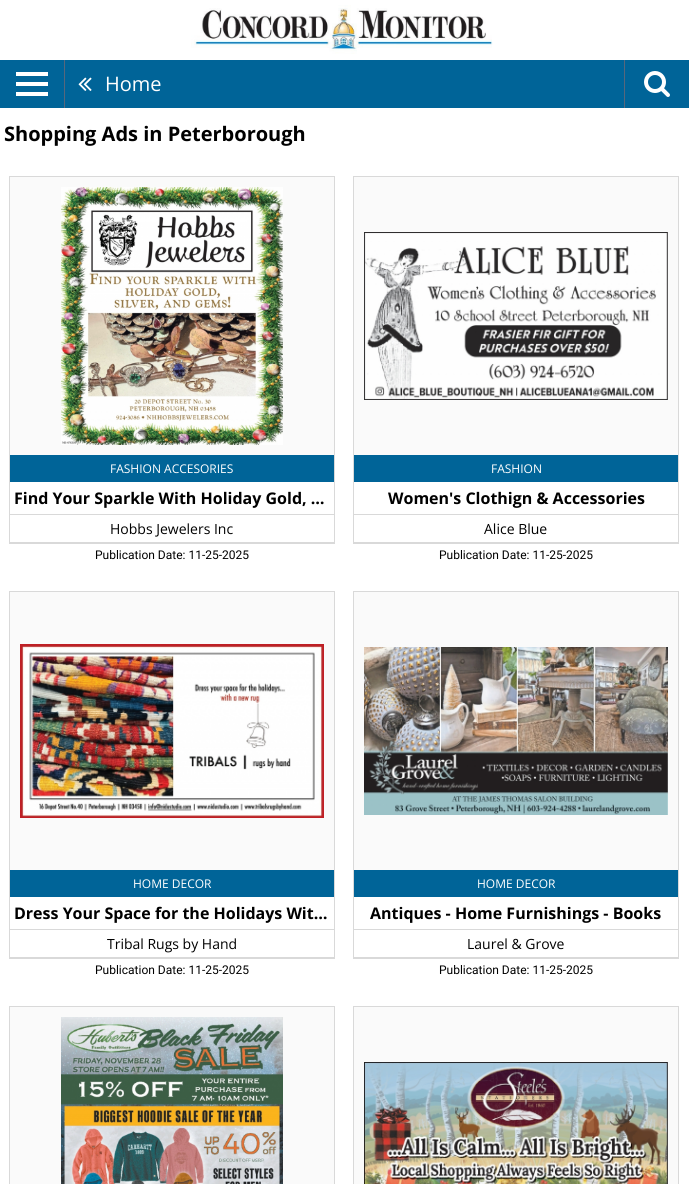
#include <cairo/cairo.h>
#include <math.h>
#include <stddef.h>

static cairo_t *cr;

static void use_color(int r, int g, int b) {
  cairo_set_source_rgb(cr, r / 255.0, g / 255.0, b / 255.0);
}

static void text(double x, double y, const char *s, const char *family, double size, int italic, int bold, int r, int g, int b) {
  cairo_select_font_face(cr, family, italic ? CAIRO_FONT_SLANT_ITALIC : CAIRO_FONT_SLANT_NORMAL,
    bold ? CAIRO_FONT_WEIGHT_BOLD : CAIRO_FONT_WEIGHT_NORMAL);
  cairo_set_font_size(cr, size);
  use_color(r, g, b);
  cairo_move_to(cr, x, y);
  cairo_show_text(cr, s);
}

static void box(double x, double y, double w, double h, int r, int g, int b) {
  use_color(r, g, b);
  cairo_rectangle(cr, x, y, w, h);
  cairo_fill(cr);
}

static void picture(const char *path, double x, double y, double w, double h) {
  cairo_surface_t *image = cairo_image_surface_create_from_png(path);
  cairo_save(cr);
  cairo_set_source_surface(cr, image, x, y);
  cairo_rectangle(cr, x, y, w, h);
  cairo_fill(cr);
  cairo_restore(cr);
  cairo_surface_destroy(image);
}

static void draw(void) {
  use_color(255, 255, 255);
  cairo_paint(cr);
  picture("img_01.png", 191, 5, 302, 49);
  box(0, 60, 689, 48, 0, 100, 152);
  box(16, 72, 32, 4, 255, 255, 255);
  box(16, 82, 32, 4, 255, 255, 255);
  box(16, 92, 32, 4, 255, 255, 255);
  box(624, 60, 1, 48, 87, 103, 124);
  box(64, 60, 1, 48, 87, 103, 124);
  picture("img_02.png", 78, 77, 14, 14);
  picture("img_03.png", 644, 71, 26, 26);
  cairo_rectangle(cr, 9.5, 176.5, 325, 367);
  use_color(217, 217, 217);
  cairo_set_line_width(cr, 1);
  cairo_stroke(cr);
  box(10, 542, 324, 1, 217, 217, 217);
  box(10, 177, 324, 278, 250, 250, 250);
  picture("img_04.png", 61, 187, 222, 258);
  box(10, 455, 324, 27, 0, 100, 152);
  box(10, 514, 324, 1, 217, 217, 217);
  cairo_rectangle(cr, 353.5, 176.5, 325, 367);
  cairo_stroke(cr);
  box(354, 542, 324, 1, 217, 217, 217);
  box(354, 177, 324, 278, 250, 250, 250);
  picture("img_05.png", 364, 232, 304, 168);
  box(354, 455, 324, 27, 0, 100, 152);
  box(354, 514, 324, 1, 217, 217, 217);
  cairo_rectangle(cr, 9.5, 591.5, 325, 367);
  cairo_stroke(cr);
  box(10, 957, 324, 1, 217, 217, 217);
  box(10, 592, 324, 278, 250, 250, 250);
  picture("img_06.png", 20, 644, 304, 174);
  box(10, 870, 324, 27, 0, 100, 152);
  box(10, 929, 324, 1, 217, 217, 217);
  cairo_rectangle(cr, 353.5, 591.5, 325, 367);
  cairo_stroke(cr);
  box(354, 957, 324, 1, 217, 217, 217);
  box(354, 592, 324, 278, 250, 250, 250);
  picture("img_07.png", 364, 647, 304, 168);
  box(354, 870, 324, 27, 0, 100, 152);
  box(354, 929, 324, 1, 217, 217, 217);
  cairo_rectangle(cr, 9.5, 1006.5, 325, 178);
  cairo_stroke(cr);
  box(10, 1007, 324, 177, 250, 250, 250);
  picture("img_08.png", 61, 1017, 222, 167);
  cairo_rectangle(cr, 353.5, 1006.5, 325, 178);
  use_color(217, 217, 217);
  cairo_stroke(cr);
  box(354, 1007, 324, 177, 250, 250, 250);
  picture("img_09.png", 364, 1062, 304, 122);
  text(105, 91, "Home", "Open Sans", 20, 0, 0, 255, 255, 255);
  text(4, 141, "Shopping Ads in Peterborough", "Open Sans", 20, 0, 1, 0, 0, 0);
  text(110, 473, "FASHION ACCESORIES", "Open Sans", 12, 0, 0, 255, 255, 255);
  text(14, 504, "Find Your Sparkle With Holiday Gold, …", "Open Sans", 16, 0, 1, 0, 0, 0);
  text(110, 534, "Hobbs Jewelers Inc", "Open Sans", 14, 0, 0, 0, 0, 0);
  text(95, 559, "Publication Date: 11-25-2025", "Roboto", 12, 0, 0, 0, 0, 0);
  text(491, 473, "FASHION", "Open Sans", 12, 0, 0, 255, 255, 255);
  text(388, 504, "Women's Clothign & Accessories", "Open Sans", 16, 0, 1, 0, 0, 0);
  text(484, 534, "Alice Blue", "Open Sans", 14, 0, 0, 0, 0, 0);
  text(439, 559, "Publication Date: 11-25-2025", "Roboto", 12, 0, 0, 0, 0, 0);
  text(133, 888, "HOME DECOR", "Open Sans", 12, 0, 0, 255, 255, 255);
  text(14, 919, "Dress Your Space for the Holidays Wit…", "Open Sans", 16, 0, 1, 0, 0, 0);
  text(107, 949, "Tribal Rugs by Hand", "Open Sans", 14, 0, 0, 0, 0, 0);
  text(95, 974, "Publication Date: 11-25-2025", "Roboto", 12, 0, 0, 0, 0, 0);
  text(477, 888, "HOME DECOR", "Open Sans", 12, 0, 0, 255, 255, 255);
  text(370, 919, "Antiques - Home Furnishings - Books", "Open Sans", 16, 0, 1, 0, 0, 0);
  text(467, 949, "Laurel & Grove", "Open Sans", 14, 0, 0, 0, 0, 0);
  text(439, 974, "Publication Date: 11-25-2025", "Roboto", 12, 0, 0, 0, 0, 0);
}

int main(void) {
  cairo_surface_t *surface = cairo_image_surface_create(CAIRO_FORMAT_RGB24, 689, 1184);
  cr = cairo_create(surface);
  cairo_font_options_t *options = cairo_font_options_create();
  cairo_font_options_set_hint_metrics(options, CAIRO_HINT_METRICS_OFF);
  cairo_font_options_set_hint_style(options, CAIRO_HINT_STYLE_NONE);
  cairo_set_font_options(cr, options);
  cairo_set_miter_limit(cr, 4);
  draw();
  cairo_surface_write_to_png(surface, "out.png");
  cairo_font_options_destroy(options);
  cairo_destroy(cr);
  cairo_surface_destroy(surface);
  return 0;
}
